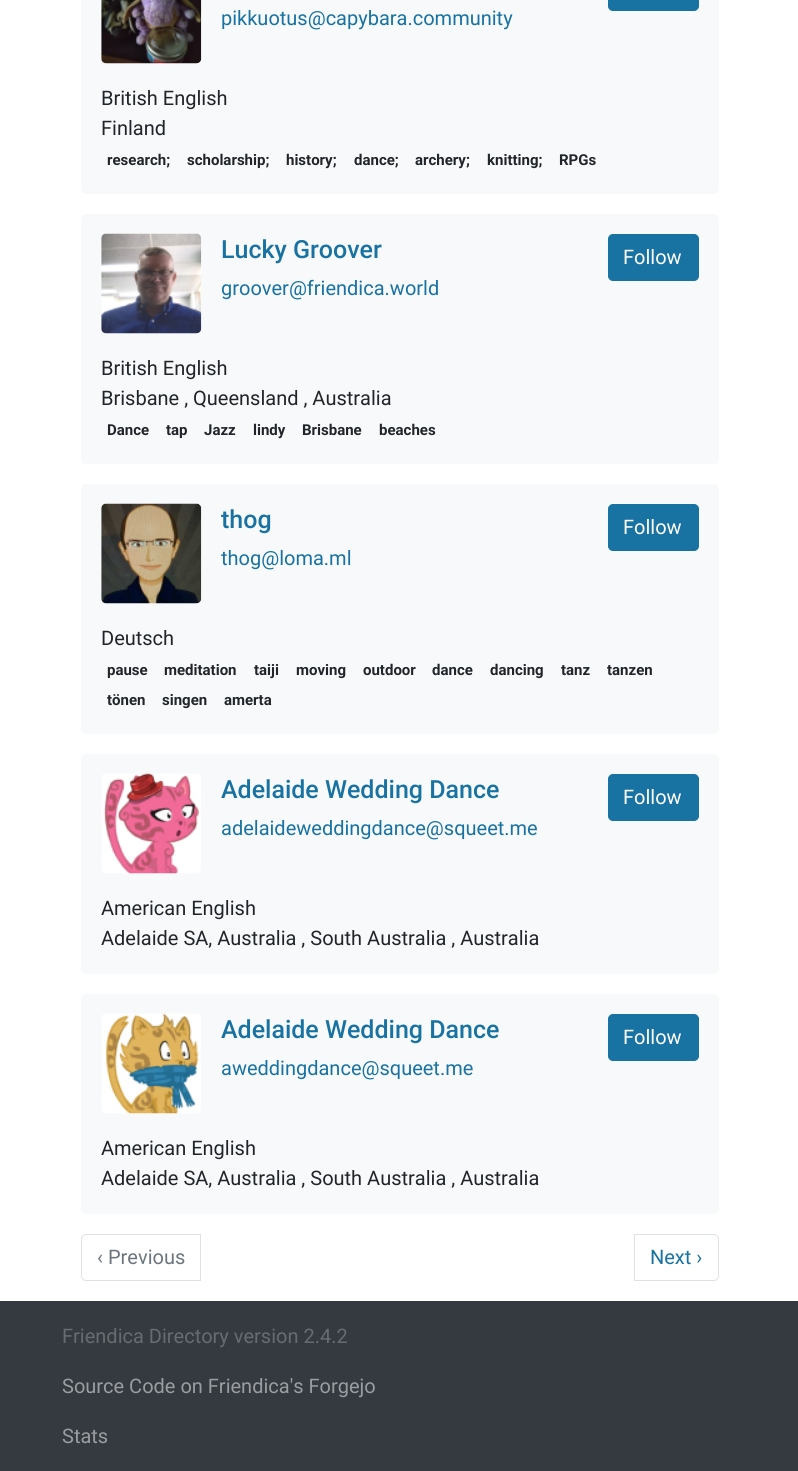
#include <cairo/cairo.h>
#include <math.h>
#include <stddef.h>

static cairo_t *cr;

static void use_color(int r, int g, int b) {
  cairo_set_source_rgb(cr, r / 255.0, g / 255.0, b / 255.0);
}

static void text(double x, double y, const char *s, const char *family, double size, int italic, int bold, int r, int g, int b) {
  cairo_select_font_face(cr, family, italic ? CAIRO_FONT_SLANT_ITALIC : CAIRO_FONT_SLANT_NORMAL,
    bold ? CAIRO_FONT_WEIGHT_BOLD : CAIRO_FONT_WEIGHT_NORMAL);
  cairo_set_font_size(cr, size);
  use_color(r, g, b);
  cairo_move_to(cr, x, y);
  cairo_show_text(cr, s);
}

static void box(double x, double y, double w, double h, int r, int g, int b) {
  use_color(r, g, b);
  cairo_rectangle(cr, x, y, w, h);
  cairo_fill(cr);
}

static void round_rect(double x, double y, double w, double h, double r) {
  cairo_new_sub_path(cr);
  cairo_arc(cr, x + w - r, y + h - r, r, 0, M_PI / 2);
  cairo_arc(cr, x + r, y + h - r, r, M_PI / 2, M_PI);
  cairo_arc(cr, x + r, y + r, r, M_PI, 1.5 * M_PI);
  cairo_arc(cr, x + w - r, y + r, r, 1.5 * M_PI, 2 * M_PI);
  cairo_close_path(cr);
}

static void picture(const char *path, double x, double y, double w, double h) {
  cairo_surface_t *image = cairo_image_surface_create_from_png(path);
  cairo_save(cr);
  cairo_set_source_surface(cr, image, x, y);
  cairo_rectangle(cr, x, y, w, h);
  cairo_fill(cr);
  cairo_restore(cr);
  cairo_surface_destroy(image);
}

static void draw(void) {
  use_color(255, 255, 255);
  cairo_paint(cr);
  use_color(248, 249, 250);
  round_rect(81, -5, 638, 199, 5);
  cairo_fill(cr);
  picture("img_01.png", 101, 0, 101, 64);
  use_color(24, 114, 162);
  round_rect(608.5, -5.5, 90, 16, 4.5);
  cairo_fill_preserve(cr);
  cairo_set_line_width(cr, 1);
  cairo_stroke(cr);
  use_color(248, 249, 250);
  round_rect(81, 214, 638, 250, 5);
  cairo_fill(cr);
  picture("img_02.png", 101, 233, 101, 101);
  use_color(24, 114, 162);
  round_rect(608.5, 234.5, 90, 46, 4.5);
  cairo_fill_preserve(cr);
  cairo_stroke(cr);
  use_color(248, 249, 250);
  round_rect(81, 484, 638, 250, 5);
  cairo_fill(cr);
  picture("img_03.png", 101, 503, 101, 101);
  use_color(24, 114, 162);
  round_rect(608.5, 504.5, 90, 46, 4.5);
  cairo_fill_preserve(cr);
  cairo_stroke(cr);
  use_color(248, 249, 250);
  round_rect(81, 754, 638, 220, 5);
  cairo_fill(cr);
  picture("img_04.png", 101, 773, 100, 101);
  use_color(24, 114, 162);
  round_rect(608.5, 774.5, 90, 46, 4.5);
  cairo_fill_preserve(cr);
  cairo_stroke(cr);
  use_color(248, 249, 250);
  round_rect(81, 994, 638, 220, 5);
  cairo_fill(cr);
  picture("img_05.png", 101, 1013, 100, 101);
  use_color(24, 114, 162);
  round_rect(608.5, 1014.5, 90, 46, 4.5);
  cairo_fill_preserve(cr);
  cairo_stroke(cr);
  cairo_new_path(cr);
  cairo_move_to(cr, 86, 1234.5);
  cairo_line_to(cr, 200.5, 1234.5);
  cairo_line_to(cr, 200.5, 1280.5);
  cairo_line_to(cr, 86, 1280.5);
  cairo_curve_to(cr, 83.5, 1280.5, 81.5, 1278.5, 81.5, 1276);
  cairo_line_to(cr, 81.5, 1239);
  cairo_curve_to(cr, 81.5, 1236.5, 83.5, 1234.5, 86, 1234.5);
  cairo_close_path(cr);
  use_color(222, 226, 230);
  cairo_stroke(cr);
  cairo_new_path(cr);
  cairo_move_to(cr, 634.5, 1234.5);
  cairo_line_to(cr, 714, 1234.5);
  cairo_curve_to(cr, 716.5, 1234.5, 718.5, 1236.5, 718.5, 1239);
  cairo_line_to(cr, 718.5, 1276);
  cairo_curve_to(cr, 718.5, 1278.5, 716.5, 1280.5, 714, 1280.5);
  cairo_line_to(cr, 634.5, 1280.5);
  cairo_close_path(cr);
  cairo_stroke(cr);
  box(0, 1301, 798, 170, 52, 58, 64);
  text(221, 25, "pikkuotus@capybara.community", "Roboto", 20, 0, 0, 24, 114, 162);
  text(101, 105, "British English", "Roboto", 20, 0, 0, 33, 37, 41);
  text(101, 135, "Finland", "Roboto", 20, 0, 0, 33, 37, 41);
  text(107, 165, "research;", "Roboto", 15, 0, 1, 33, 37, 41);
  text(187, 165, "scholarship;", "Roboto", 15, 0, 1, 33, 37, 41);
  text(286, 165, "history;", "Roboto", 15, 0, 1, 33, 37, 41);
  text(354, 165, "dance;", "Roboto", 15, 0, 1, 33, 37, 41);
  text(415, 165, "archery;", "Roboto", 15, 0, 1, 33, 37, 41);
  text(487, 165, "knitting;", "Roboto", 15, 0, 1, 33, 37, 41);
  text(559, 165, "RPGs", "Roboto", 15, 0, 1, 33, 37, 41);
  text(221, 258, "Lucky Groover", "Roboto Medium", 25, 0, 0, 24, 114, 162);
  text(623, 264, "Follow", "Roboto", 20, 0, 0, 255, 255, 255);
  text(221, 295, "groover@friendica.world", "Roboto", 20, 0, 0, 24, 114, 162);
  text(101, 375, "British English", "Roboto", 20, 0, 0, 33, 37, 41);
  text(101, 405, "Brisbane , Queensland , Australia", "Roboto", 20, 0, 0, 33, 37, 41);
  text(107, 435, "Dance", "Roboto", 15, 0, 1, 33, 37, 41);
  text(166, 435, "tap", "Roboto", 15, 0, 1, 33, 37, 41);
  text(204, 435, "Jazz", "Roboto", 15, 0, 1, 33, 37, 41);
  text(253, 435, "lindy", "Roboto", 15, 0, 1, 33, 37, 41);
  text(302, 435, "Brisbane", "Roboto", 15, 0, 1, 33, 37, 41);
  text(379, 435, "beaches", "Roboto", 15, 0, 1, 33, 37, 41);
  text(221, 528, "thog", "Roboto Medium", 25, 0, 0, 24, 114, 162);
  text(623, 534, "Follow", "Roboto", 20, 0, 0, 255, 255, 255);
  text(221, 565, "thog@loma.ml", "Roboto", 20, 0, 0, 24, 114, 162);
  text(101, 645, "Deutsch", "Roboto", 20, 0, 0, 33, 37, 41);
  text(107, 675, "pause", "Roboto", 15, 0, 1, 33, 37, 41);
  text(164, 675, "meditation", "Roboto", 15, 0, 1, 33, 37, 41);
  text(254, 675, "taiji", "Roboto", 15, 0, 1, 33, 37, 41);
  text(296, 675, "moving", "Roboto", 15, 0, 1, 33, 37, 41);
  text(363, 675, "outdoor", "Roboto", 15, 0, 1, 33, 37, 41);
  text(432, 675, "dance", "Roboto", 15, 0, 1, 33, 37, 41);
  text(490, 675, "dancing", "Roboto", 15, 0, 1, 33, 37, 41);
  text(561, 675, "tanz", "Roboto", 15, 0, 1, 33, 37, 41);
  text(607, 675, "tanzen", "Roboto", 15, 0, 1, 33, 37, 41);
  text(107, 705, "tönen", "Roboto", 15, 0, 1, 33, 37, 41);
  text(162, 705, "singen", "Roboto", 15, 0, 1, 33, 37, 41);
  text(224, 705, "amerta", "Roboto", 15, 0, 1, 33, 37, 41);
  text(221, 798, "Adelaide Wedding Dance", "Roboto Medium", 25, 0, 0, 24, 114, 162);
  text(623, 804, "Follow", "Roboto", 20, 0, 0, 255, 255, 255);
  text(221, 835, "adelaideweddingdance@squeet.me", "Roboto", 20, 0, 0, 24, 114, 162);
  text(101, 915, "American English", "Roboto", 20, 0, 0, 33, 37, 41);
  text(101, 945, "Adelaide SA, Australia , South Australia , Australia", "Roboto", 20, 0, 0, 33, 37, 41);
  text(221, 1038, "Adelaide Wedding Dance", "Roboto Medium", 25, 0, 0, 24, 114, 162);
  text(623, 1044, "Follow", "Roboto", 20, 0, 0, 255, 255, 255);
  text(221, 1075, "aweddingdance@squeet.me", "Roboto", 20, 0, 0, 24, 114, 162);
  text(101, 1155, "American English", "Roboto", 20, 0, 0, 33, 37, 41);
  text(101, 1185, "Adelaide SA, Australia , South Australia , Australia", "Roboto", 20, 0, 0, 33, 37, 41);
  text(97, 1264, "‹ Previous", "Roboto", 20, 0, 0, 108, 117, 125);
  text(650, 1264, "Next ›", "Roboto", 20, 0, 0, 24, 114, 162);
  text(62, 1343, "Friendica Directory version 2.4.2", "Roboto", 20, 0, 0, 103, 107, 112);
  text(62, 1393, "Source Code on Friendica's Forgejo", "Roboto", 20, 0, 0, 154, 157, 160);
  text(62, 1443, "Stats", "Roboto", 20, 0, 0, 154, 157, 160);
}

int main(void) {
  cairo_surface_t *surface = cairo_image_surface_create(CAIRO_FORMAT_RGB24, 798, 1471);
  cr = cairo_create(surface);
  cairo_font_options_t *options = cairo_font_options_create();
  cairo_font_options_set_hint_metrics(options, CAIRO_HINT_METRICS_OFF);
  cairo_font_options_set_hint_style(options, CAIRO_HINT_STYLE_NONE);
  cairo_set_font_options(cr, options);
  cairo_set_miter_limit(cr, 4);
  draw();
  cairo_surface_write_to_png(surface, "out.png");
  cairo_font_options_destroy(options);
  cairo_destroy(cr);
  cairo_surface_destroy(surface);
  return 0;
}
